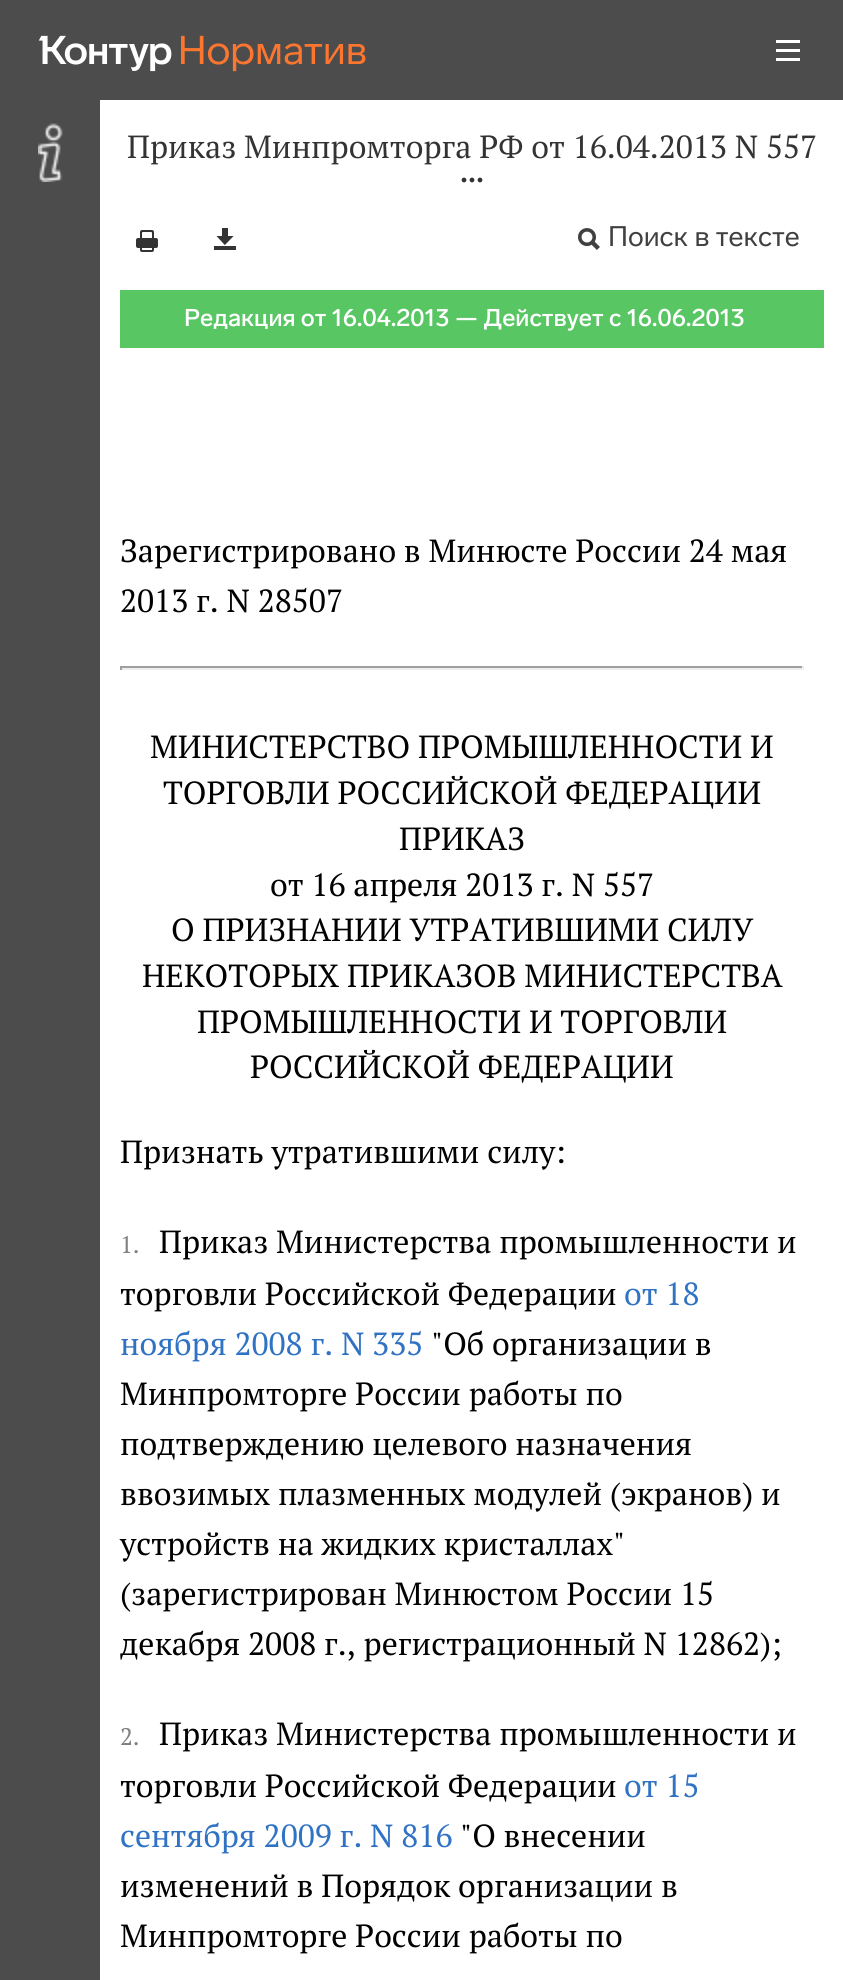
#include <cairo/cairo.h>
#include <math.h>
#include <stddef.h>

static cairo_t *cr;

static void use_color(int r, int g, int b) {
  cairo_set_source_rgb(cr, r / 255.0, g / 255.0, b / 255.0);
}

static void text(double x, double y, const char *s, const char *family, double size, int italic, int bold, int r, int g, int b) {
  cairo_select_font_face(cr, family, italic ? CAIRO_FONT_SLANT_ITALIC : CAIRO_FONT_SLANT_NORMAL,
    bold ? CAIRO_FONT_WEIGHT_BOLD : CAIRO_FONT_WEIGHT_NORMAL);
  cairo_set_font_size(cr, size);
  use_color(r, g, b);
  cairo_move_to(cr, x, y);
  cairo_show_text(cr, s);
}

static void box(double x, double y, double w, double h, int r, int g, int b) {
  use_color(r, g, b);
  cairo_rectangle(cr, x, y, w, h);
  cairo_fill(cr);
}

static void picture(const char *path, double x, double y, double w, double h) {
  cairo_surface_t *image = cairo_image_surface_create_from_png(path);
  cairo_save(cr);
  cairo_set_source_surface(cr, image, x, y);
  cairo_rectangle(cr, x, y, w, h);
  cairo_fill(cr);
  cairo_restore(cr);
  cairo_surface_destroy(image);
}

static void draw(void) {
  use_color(255, 255, 255);
  cairo_paint(cr);
  box(0, 0, 843, 100, 76, 76, 76);
  picture("img_01.png", 38, 35, 134, 37);
  picture("img_02.png", 181, 35, 185, 37);
  picture("img_03.png", 776, 40, 24, 21);
  box(0, 100, 100, 1880, 76, 76, 76);
  picture("img_04.png", 38, 123, 25, 59);
  picture("img_05.png", 461, 177, 22, 6);
  picture("img_06.png", 136, 230, 22, 22);
  picture("img_07.png", 214, 228, 22, 22);
  picture("img_08.png", 578, 228, 22, 22);
  box(120, 290, 704, 58, 87, 198, 99);
  box(120, 666, 684, 2, 159, 159, 159);
  box(802, 666, 2, 4, 238, 238, 238);
  box(120, 668, 684, 2, 238, 238, 238);
  box(120, 666, 2, 4, 159, 159, 159);
  text(127, 158, "Приказ Минпромторга РФ от 16.04.2013 N 557", "PT Serif", 32, 0, 0, 51, 51, 51);
  text(608, 246, "Поиск в тексте", "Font", 28, 0, 0, 64, 64, 64);
  text(184, 326, "Редакция от 16.04.2013 — Действует с 16.06.2013", "Font Medium", 24, 0, 0, 255, 255, 255);
  text(120, 562, "Зарегистрировано в Минюсте России 24 мая", "PT Serif", 32, 0, 0, 0, 0, 0);
  text(120, 612, "2013 г. N 28507", "PT Serif", 32, 0, 0, 0, 0, 0);
  text(150, 758, "МИНИСТЕРСТВО ПРОМЫШЛЕННОСТИ И", "PT Serif", 32, 0, 0, 0, 0, 0);
  text(163, 804, "ТОРГОВЛИ РОССИЙСКОЙ ФЕДЕРАЦИИ", "PT Serif", 32, 0, 0, 0, 0, 0);
  text(399, 850, "ПРИКАЗ", "PT Serif", 32, 0, 0, 0, 0, 0);
  text(270, 896, "от 16 апреля 2013 г. N 557", "PT Serif", 32, 0, 0, 0, 0, 0);
  text(171, 941, "О ПРИЗНАНИИ УТРАТИВШИМИ СИЛУ", "PT Serif", 32, 0, 0, 0, 0, 0);
  text(142, 987, "НЕКОТОРЫХ ПРИКАЗОВ МИНИСТЕРСТВА", "PT Serif", 32, 0, 0, 0, 0, 0);
  text(197, 1033, "ПРОМЫШЛЕННОСТИ И ТОРГОВЛИ", "PT Serif", 32, 0, 0, 0, 0, 0);
  text(250, 1078, "РОССИЙСКОЙ ФЕДЕРАЦИИ", "PT Serif", 32, 0, 0, 0, 0, 0);
  text(120, 1163, "Признать утратившими силу:", "PT Serif", 32, 0, 0, 0, 0, 0);
  text(120, 1253, "1.", "PT Serif", 24, 0, 0, 128, 128, 128);
  text(159, 1253, "Приказ Министерства промышленности и", "PT Serif", 32, 0, 0, 0, 0, 0);
  text(120, 1305, "торговли Российской Федерации", "PT Serif", 32, 0, 0, 0, 0, 0);
  text(624, 1305, "от 18", "PT Serif", 32, 0, 0, 48, 114, 196);
  text(120, 1355, "ноября 2008 г. N 335", "PT Serif", 32, 0, 0, 48, 114, 196);
  text(431, 1355, "\"Об организации в", "PT Serif", 32, 0, 0, 0, 0, 0);
  text(120, 1405, "Минпромторге России работы по", "PT Serif", 32, 0, 0, 0, 0, 0);
  text(120, 1455, "подтверждению целевого назначения", "PT Serif", 32, 0, 0, 0, 0, 0);
  text(120, 1505, "ввозимых плазменных модулей (экранов) и", "PT Serif", 32, 0, 0, 0, 0, 0);
  text(120, 1555, "устройств на жидких кристаллах\"", "PT Serif", 32, 0, 0, 0, 0, 0);
  text(120, 1605, "(зарегистрирован Минюстом России 15", "PT Serif", 32, 0, 0, 0, 0, 0);
  text(120, 1655, "декабря 2008 г., регистрационный N 12862);", "PT Serif", 32, 0, 0, 0, 0, 0);
  text(120, 1745, "2.", "PT Serif", 24, 0, 0, 128, 128, 128);
  text(159, 1745, "Приказ Министерства промышленности и", "PT Serif", 32, 0, 0, 0, 0, 0);
  text(120, 1797, "торговли Российской Федерации", "PT Serif", 32, 0, 0, 0, 0, 0);
  text(624, 1797, "от 15", "PT Serif", 32, 0, 0, 48, 114, 196);
  text(120, 1847, "сентября 2009 г. N 816", "PT Serif", 32, 0, 0, 48, 114, 196);
  text(460, 1847, "\"О внесении", "PT Serif", 32, 0, 0, 0, 0, 0);
  text(120, 1897, "изменений в Порядок организации в", "PT Serif", 32, 0, 0, 0, 0, 0);
  text(120, 1947, "Минпромторге России работы по", "PT Serif", 32, 0, 0, 0, 0, 0);
}

int main(void) {
  cairo_surface_t *surface = cairo_image_surface_create(CAIRO_FORMAT_RGB24, 843, 1980);
  cr = cairo_create(surface);
  cairo_font_options_t *options = cairo_font_options_create();
  cairo_font_options_set_hint_metrics(options, CAIRO_HINT_METRICS_OFF);
  cairo_font_options_set_hint_style(options, CAIRO_HINT_STYLE_NONE);
  cairo_set_font_options(cr, options);
  cairo_set_miter_limit(cr, 4);
  draw();
  cairo_surface_write_to_png(surface, "out.png");
  cairo_font_options_destroy(options);
  cairo_destroy(cr);
  cairo_surface_destroy(surface);
  return 0;
}
